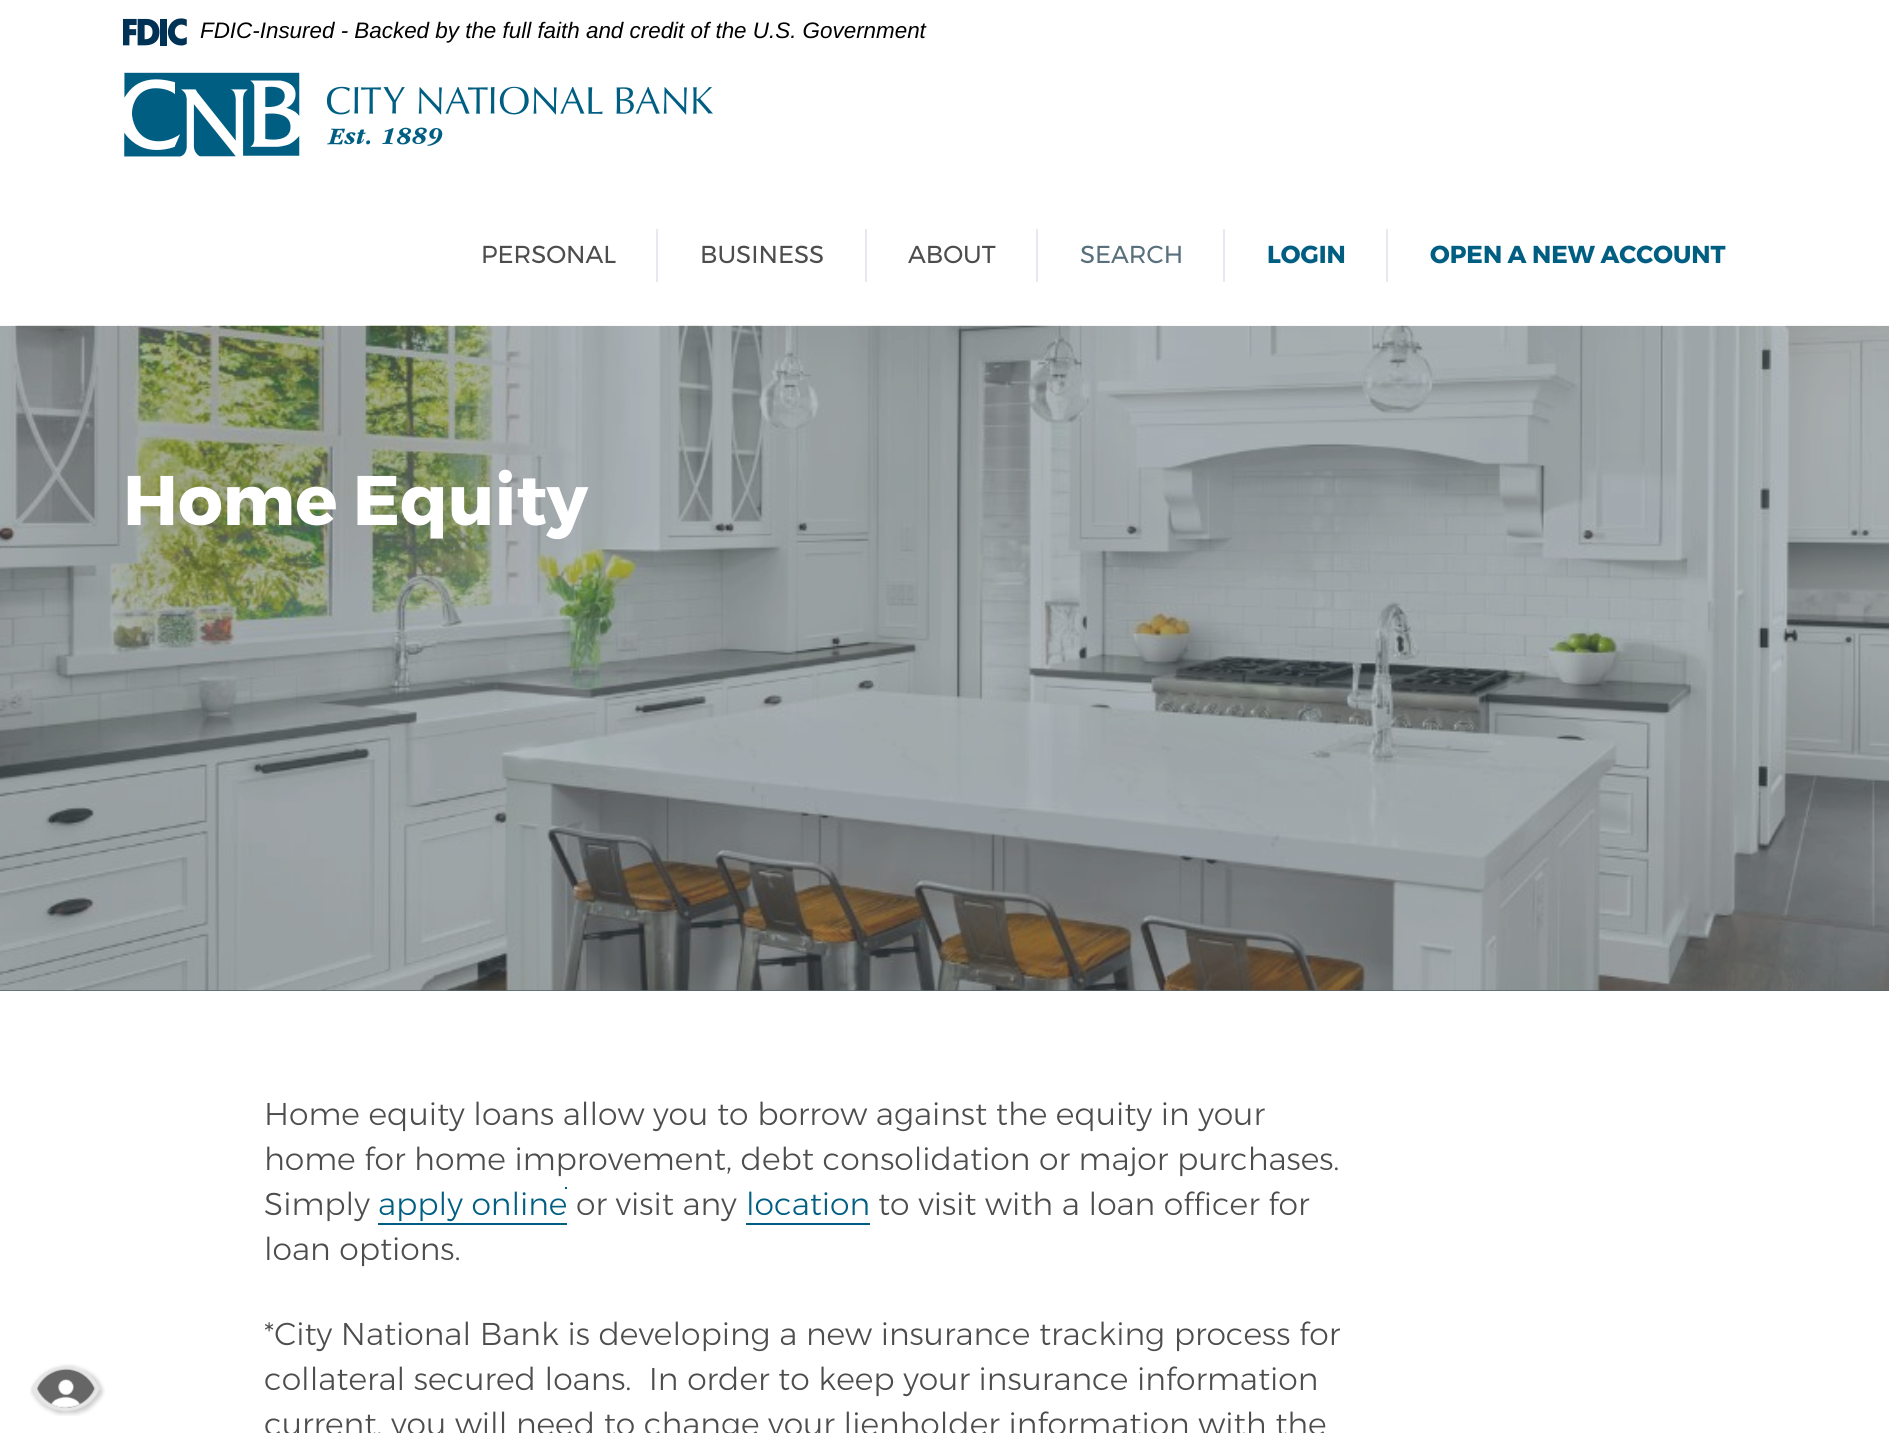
#include <cairo/cairo.h>
#include <math.h>
#include <stddef.h>

static cairo_t *cr;

static void use_color(int r, int g, int b) {
  cairo_set_source_rgb(cr, r / 255.0, g / 255.0, b / 255.0);
}

static void text(double x, double y, const char *s, const char *family, double size, int italic, int bold, int r, int g, int b) {
  cairo_select_font_face(cr, family, italic ? CAIRO_FONT_SLANT_ITALIC : CAIRO_FONT_SLANT_NORMAL,
    bold ? CAIRO_FONT_WEIGHT_BOLD : CAIRO_FONT_WEIGHT_NORMAL);
  cairo_set_font_size(cr, size);
  use_color(r, g, b);
  cairo_move_to(cr, x, y);
  cairo_show_text(cr, s);
}

static void box(double x, double y, double w, double h, int r, int g, int b) {
  use_color(r, g, b);
  cairo_rectangle(cr, x, y, w, h);
  cairo_fill(cr);
}

static void picture(const char *path, double x, double y, double w, double h) {
  cairo_surface_t *image = cairo_image_surface_create_from_png(path);
  cairo_save(cr);
  cairo_set_source_surface(cr, image, x, y);
  cairo_rectangle(cr, x, y, w, h);
  cairo_fill(cr);
  cairo_restore(cr);
  cairo_surface_destroy(image);
}

static void draw(void) {
  use_color(255, 255, 255);
  cairo_paint(cr);
  picture("img_01.png", 123, 18, 64, 28);
  picture("img_02.png", 124, 72, 589, 85);
  box(656, 229, 2, 53, 232, 232, 239);
  box(865, 229, 2, 53, 232, 232, 239);
  box(1036, 229, 2, 53, 232, 232, 239);
  box(1223, 229, 2, 53, 232, 232, 239);
  box(1386, 229, 2, 53, 232, 232, 239);
  box(0, 326, 1889, 665, 84, 102, 111);
  picture("img_03.png", 0, 325, 1889, 666);
  picture("img_04.png", 30, 1364, 75, 52);
  box(378, 1223, 189, 2, 0, 94, 130);
  box(565, 1187, 2, 2, 0, 94, 130);
  box(746, 1223, 124, 2, 0, 94, 130);
  text(200, 38, "FDIC-Insured - Backed by the full faith and credit of the U.S. Government", "Liberation Sans", 22.4, 1, 0, 0, 0, 0);
  text(481, 263, "PERSONAL", "Montserrat", 24.5, 0, 0, 77, 77, 77);
  text(700, 263, "BUSINESS", "Montserrat", 24.5, 0, 0, 77, 77, 77);
  text(908, 263, "ABOUT", "Montserrat", 24.5, 0, 0, 77, 77, 77);
  text(1080, 263, "SEARCH", "Montserrat", 24.5, 0, 0, 88, 111, 124);
  text(1267, 263, "LOGIN", "Montserrat", 24.5, 0, 1, 0, 94, 130);
  text(1430, 263, "OPEN A NEW ACCOUNT", "Montserrat", 24.5, 0, 1, 0, 94, 130);
  text(123, 525, "Home Equity", "Montserrat", 70, 0, 1, 255, 255, 255);
  text(264, 1125, "Home equity loans allow you to borrow against the equity in your", "Montserrat Light", 31.5, 0, 0, 77, 77, 77);
  text(264, 1170, "home for home improvement, debt consolidation or major purchases.", "Montserrat Light", 31.5, 0, 0, 77, 77, 77);
  text(264, 1215, "Simply", "Montserrat Light", 31.5, 0, 0, 77, 77, 77);
  text(378, 1215, "apply online", "Montserrat Light", 31.5, 0, 0, 0, 94, 130);
  text(576, 1215, "or visit any", "Montserrat Light", 31.5, 0, 0, 77, 77, 77);
  text(746, 1215, "location", "Montserrat Light", 31.5, 0, 0, 0, 94, 130);
  text(878, 1215, "to visit with a loan officer for", "Montserrat Light", 31.5, 0, 0, 77, 77, 77);
  text(264, 1260, "loan options.", "Montserrat Light", 31.5, 0, 0, 77, 77, 77);
  text(264, 1345, "*City National Bank is developing a new insurance tracking process for", "Montserrat Light", 31.5, 0, 0, 77, 77, 77);
  text(264, 1390, "collateral secured loans.  In order to keep your insurance information", "Montserrat Light", 31.5, 0, 0, 77, 77, 77);
  text(264, 1435, "current, you will need to change your lienholder information with the", "Montserrat Light", 31.5, 0, 0, 77, 77, 77);
}

int main(void) {
  cairo_surface_t *surface = cairo_image_surface_create(CAIRO_FORMAT_RGB24, 1889, 1433);
  cr = cairo_create(surface);
  cairo_font_options_t *options = cairo_font_options_create();
  cairo_font_options_set_hint_metrics(options, CAIRO_HINT_METRICS_OFF);
  cairo_font_options_set_hint_style(options, CAIRO_HINT_STYLE_NONE);
  cairo_set_font_options(cr, options);
  cairo_set_miter_limit(cr, 4);
  draw();
  cairo_surface_write_to_png(surface, "out.png");
  cairo_font_options_destroy(options);
  cairo_destroy(cr);
  cairo_surface_destroy(surface);
  return 0;
}
